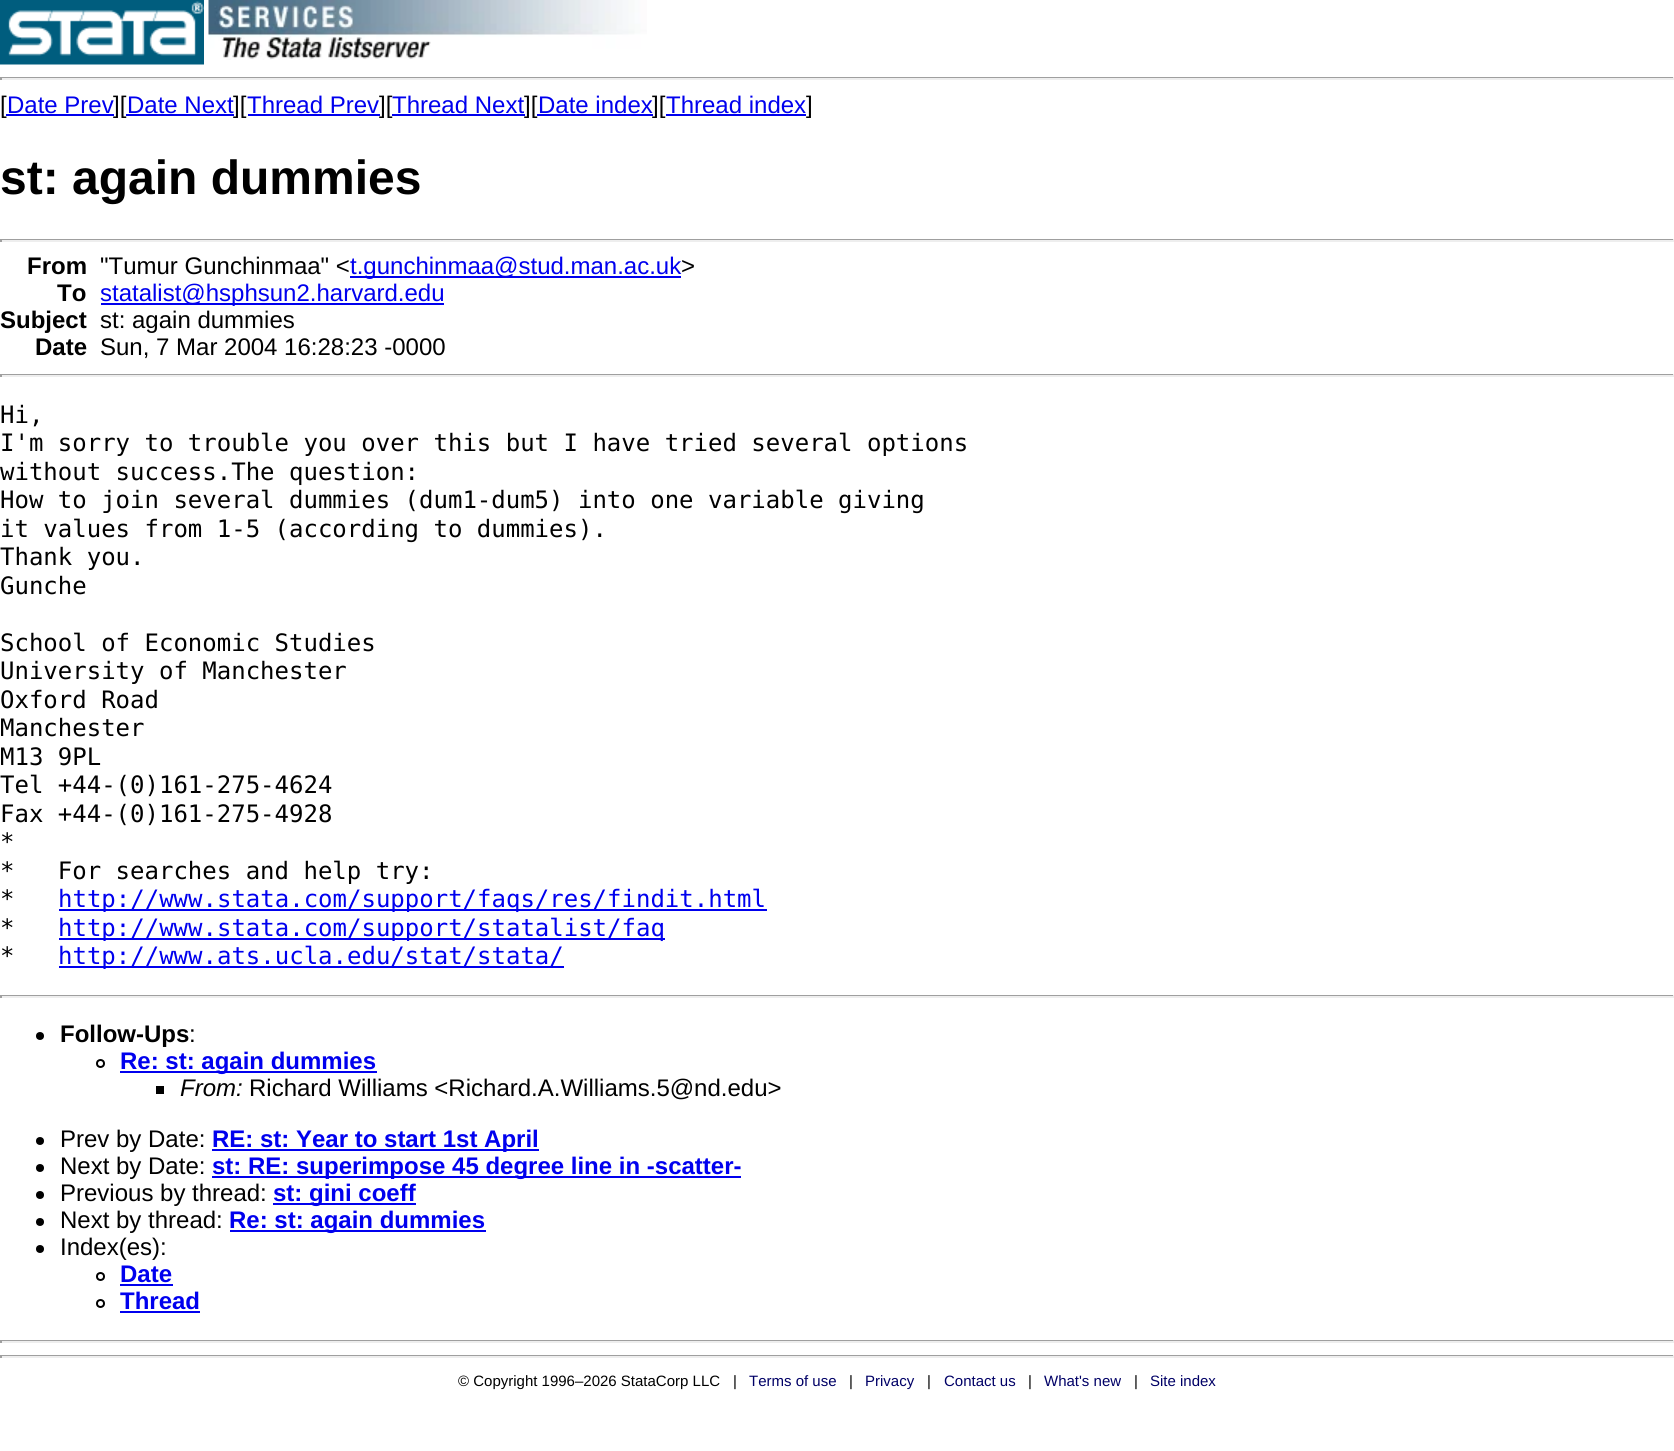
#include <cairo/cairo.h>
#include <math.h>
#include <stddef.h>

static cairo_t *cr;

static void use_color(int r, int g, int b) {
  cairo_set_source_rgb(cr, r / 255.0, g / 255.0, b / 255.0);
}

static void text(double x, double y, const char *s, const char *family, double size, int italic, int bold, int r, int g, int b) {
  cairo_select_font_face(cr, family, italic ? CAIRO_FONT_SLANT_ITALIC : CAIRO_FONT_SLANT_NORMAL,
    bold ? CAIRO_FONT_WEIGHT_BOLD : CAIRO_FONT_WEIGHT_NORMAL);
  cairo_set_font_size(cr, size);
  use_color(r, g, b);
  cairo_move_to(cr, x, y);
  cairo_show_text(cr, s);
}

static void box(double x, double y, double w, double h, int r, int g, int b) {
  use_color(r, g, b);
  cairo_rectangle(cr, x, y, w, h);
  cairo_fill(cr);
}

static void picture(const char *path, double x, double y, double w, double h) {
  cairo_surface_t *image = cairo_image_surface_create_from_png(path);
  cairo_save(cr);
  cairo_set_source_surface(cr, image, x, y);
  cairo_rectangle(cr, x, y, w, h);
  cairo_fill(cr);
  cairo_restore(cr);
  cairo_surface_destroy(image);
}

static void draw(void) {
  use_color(255, 255, 255);
  cairo_paint(cr);
  picture("img_01.png", 0, 0, 204, 65);
  picture("img_02.png", 208, 0, 439, 60);
  box(0, 77, 1674, 1, 159, 159, 159);
  box(1673, 77, 1, 3, 238, 238, 238);
  box(0, 78, 1674, 2, 238, 238, 238);
  box(0, 77, 2, 3, 159, 159, 159);
  box(248, 114, 132, 2, 0, 0, 238);
  box(392, 114, 133, 2, 0, 0, 238);
  box(666, 114, 140, 2, 0, 0, 238);
  box(0, 239, 1674, 1, 159, 159, 159);
  box(1673, 239, 1, 3, 238, 238, 238);
  box(0, 240, 1674, 2, 238, 238, 238);
  box(0, 239, 2, 3, 159, 159, 159);
  box(350, 276, 331, 2, 0, 0, 238);
  box(101, 303, 343, 2, 0, 0, 238);
  box(0, 374, 1674, 1, 159, 159, 159);
  box(1673, 374, 1, 3, 238, 238, 238);
  box(0, 375, 1674, 2, 238, 238, 238);
  box(0, 374, 2, 3, 159, 159, 159);
  box(59, 909, 708, 2, 0, 0, 238);
  box(59, 938, 606, 2, 0, 0, 238);
  box(59, 966, 505, 2, 0, 0, 238);
  box(0, 995, 1674, 1, 159, 159, 159);
  box(1673, 995, 1, 3, 238, 238, 238);
  box(0, 996, 1674, 2, 238, 238, 238);
  box(0, 995, 2, 3, 159, 159, 159);
  use_color(0, 0, 0);
  cairo_arc(cr, 40, 1036, 4, 0, 2 * M_PI);
  cairo_fill(cr);
  cairo_arc(cr, 100.5, 1063.5, 3.5, 0, 2 * M_PI);
  cairo_stroke(cr);
  box(120, 1071, 257, 2, 0, 0, 238);
  box(156, 1086, 8, 8, 0, 0, 0);
  cairo_arc(cr, 40, 1141, 4, 0, 2 * M_PI);
  cairo_fill(cr);
  box(212, 1149, 327, 2, 0, 0, 238);
  use_color(0, 0, 0);
  cairo_arc(cr, 40, 1168, 4, 0, 2 * M_PI);
  cairo_fill(cr);
  box(212, 1176, 529, 2, 0, 0, 238);
  use_color(0, 0, 0);
  cairo_arc(cr, 40, 1195, 4, 0, 2 * M_PI);
  cairo_fill(cr);
  box(273, 1203, 143, 2, 0, 0, 238);
  use_color(0, 0, 0);
  cairo_arc(cr, 40, 1222, 4, 0, 2 * M_PI);
  cairo_fill(cr);
  box(230, 1230, 256, 2, 0, 0, 238);
  use_color(0, 0, 0);
  cairo_arc(cr, 40, 1249, 4, 0, 2 * M_PI);
  cairo_fill(cr);
  cairo_arc(cr, 100.5, 1276.5, 3.5, 0, 2 * M_PI);
  cairo_stroke(cr);
  box(120, 1284, 53, 2, 0, 0, 238);
  cairo_arc(cr, 100.5, 1303.5, 3.5, 0, 2 * M_PI);
  use_color(0, 0, 0);
  cairo_stroke(cr);
  box(120, 1311, 80, 2, 0, 0, 238);
  box(0, 1340, 1674, 1, 159, 159, 159);
  box(1673, 1340, 1, 3, 238, 238, 238);
  box(0, 1341, 1674, 2, 238, 238, 238);
  box(0, 1340, 2, 3, 159, 159, 159);
  box(0, 1355, 1674, 1, 159, 159, 159);
  box(1673, 1355, 1, 3, 238, 238, 238);
  box(0, 1356, 1674, 2, 238, 238, 238);
  box(0, 1355, 2, 3, 159, 159, 159);
  text(0, 113, "[", "Liberation Sans", 24, 0, 0, 0, 0, 0);
  text(7, 113, "Date Prev", "Liberation Sans", 24, 0, 0, 0, 0, 238);
  box(6, 114, 108, 2, 0, 0, 238);
  text(113, 113, "][", "Liberation Sans", 24, 0, 0, 0, 0, 0);
  text(127, 113, "Date Next", "Liberation Sans", 24, 0, 0, 0, 0, 238);
  box(126, 114, 108, 2, 0, 0, 238);
  text(233, 113, "][", "Liberation Sans", 24, 0, 0, 0, 0, 0);
  text(247, 113, "Thread Prev", "Liberation Sans", 24, 0, 0, 0, 0, 238);
  text(379, 113, "][", "Liberation Sans", 24, 0, 0, 0, 0, 0);
  text(392, 113, "Thread Next", "Liberation Sans", 24, 0, 0, 0, 0, 238);
  text(524, 113, "][", "Liberation Sans", 24, 0, 0, 0, 0, 0);
  text(538, 113, "Date index", "Liberation Sans", 24, 0, 0, 0, 0, 238);
  box(537, 114, 116, 2, 0, 0, 238);
  text(652, 113, "][", "Liberation Sans", 24, 0, 0, 0, 0, 0);
  text(666, 113, "Thread index", "Liberation Sans", 24, 0, 0, 0, 0, 238);
  text(806, 113, "]", "Liberation Sans", 24, 0, 0, 0, 0, 0);
  text(0, 194, "st: again dummies", "Liberation Sans", 48, 0, 1, 0, 0, 0);
  text(27, 274, "From", "Liberation Sans", 24, 0, 1, 0, 0, 0);
  text(100, 274, "\"Tumur Gunchinmaa\" <", "Liberation Sans", 24, 0, 0, 0, 0, 0);
  text(350, 274, "t.gunchinmaa@stud.man.ac.uk", "Liberation Sans", 24, 0, 0, 0, 0, 238);
  text(681, 274, ">", "Liberation Sans", 24, 0, 0, 0, 0, 0);
  text(57, 301, "To", "Liberation Sans", 24, 0, 1, 0, 0, 0);
  text(100, 301, "statalist@hsphsun2.harvard.edu", "Liberation Sans", 24, 0, 0, 0, 0, 238);
  text(0, 328, "Subject", "Liberation Sans", 24, 0, 1, 0, 0, 0);
  text(100, 328, "st: again dummies", "Liberation Sans", 24, 0, 0, 0, 0, 0);
  text(35, 355, "Date", "Liberation Sans", 24, 0, 1, 0, 0, 0);
  text(100, 355, "Sun, 7 Mar 2004 16:28:23 -0000", "Liberation Sans", 24, 0, 0, 0, 0, 0);
  text(0, 423, "Hi,", "DejaVu Sans Mono", 24, 0, 0, 0, 0, 0);
  text(0, 451, "I'm sorry to trouble you over this but I have tried several options", "DejaVu Sans Mono", 24, 0, 0, 0, 0, 0);
  text(0, 480, "without success.The question:", "DejaVu Sans Mono", 24, 0, 0, 0, 0, 0);
  text(0, 508, "How to join several dummies (dum1-dum5) into one variable giving", "DejaVu Sans Mono", 24, 0, 0, 0, 0, 0);
  text(0, 537, "it values from 1-5 (according to dummies).", "DejaVu Sans Mono", 24, 0, 0, 0, 0, 0);
  text(0, 565, "Thank you.", "DejaVu Sans Mono", 24, 0, 0, 0, 0, 0);
  text(0, 594, "Gunche", "DejaVu Sans Mono", 24, 0, 0, 0, 0, 0);
  text(0, 651, "School of Economic Studies", "DejaVu Sans Mono", 24, 0, 0, 0, 0, 0);
  text(0, 679, "University of Manchester", "DejaVu Sans Mono", 24, 0, 0, 0, 0, 0);
  text(0, 708, "Oxford Road", "DejaVu Sans Mono", 24, 0, 0, 0, 0, 0);
  text(0, 736, "Manchester", "DejaVu Sans Mono", 24, 0, 0, 0, 0, 0);
  text(0, 765, "M13 9PL", "DejaVu Sans Mono", 24, 0, 0, 0, 0, 0);
  text(0, 793, "Tel +44-(0)161-275-4624", "DejaVu Sans Mono", 24, 0, 0, 0, 0, 0);
  text(0, 822, "Fax +44-(0)161-275-4928", "DejaVu Sans Mono", 24, 0, 0, 0, 0, 0);
  text(0, 850, "*", "DejaVu Sans Mono", 24, 0, 0, 0, 0, 0);
  text(0, 879, "*   For searches and help try:", "DejaVu Sans Mono", 24, 0, 0, 0, 0, 0);
  text(0, 907, "*", "DejaVu Sans Mono", 24, 0, 0, 0, 0, 0);
  text(58, 907, "http://www.stata.com/support/faqs/res/findit.html", "DejaVu Sans Mono", 24, 0, 0, 0, 0, 238);
  text(0, 936, "*", "DejaVu Sans Mono", 24, 0, 0, 0, 0, 0);
  text(58, 936, "http://www.stata.com/support/statalist/faq", "DejaVu Sans Mono", 24, 0, 0, 0, 0, 238);
  text(0, 964, "*", "DejaVu Sans Mono", 24, 0, 0, 0, 0, 0);
  text(58, 964, "http://www.ats.ucla.edu/stat/stata/", "DejaVu Sans Mono", 24, 0, 0, 0, 0, 238);
  text(60, 1042, "Follow-Ups", "Liberation Sans", 24, 0, 1, 0, 0, 0);
  text(189, 1042, ":", "Liberation Sans", 24, 0, 0, 0, 0, 0);
  text(120, 1069, "Re: st: again dummies", "Liberation Sans", 24, 0, 1, 0, 0, 238);
  text(180, 1096, "From:", "Liberation Sans", 24, 1, 0, 0, 0, 0);
  text(249, 1096, "Richard Williams <Richard.A.Williams.5@nd.edu>", "Liberation Sans", 24, 0, 0, 0, 0, 0);
  text(60, 1147, "Prev by Date:", "Liberation Sans", 24, 0, 0, 0, 0, 0);
  text(212, 1147, "RE: st: Year to start 1st April", "Liberation Sans", 24, 0, 1, 0, 0, 238);
  text(60, 1174, "Next by Date:", "Liberation Sans", 24, 0, 0, 0, 0, 0);
  text(212, 1174, "st: RE: superimpose 45 degree line in -scatter-", "Liberation Sans", 24, 0, 1, 0, 0, 238);
  text(60, 1201, "Previous by thread:", "Liberation Sans", 24, 0, 0, 0, 0, 0);
  text(273, 1201, "st: gini coeff", "Liberation Sans", 24, 0, 1, 0, 0, 238);
  text(60, 1228, "Next by thread:", "Liberation Sans", 24, 0, 0, 0, 0, 0);
  text(229, 1228, "Re: st: again dummies", "Liberation Sans", 24, 0, 1, 0, 0, 238);
  text(60, 1255, "Index(es):", "Liberation Sans", 24, 0, 0, 0, 0, 0);
  text(120, 1282, "Date", "Liberation Sans", 24, 0, 1, 0, 0, 238);
  text(120, 1309, "Thread", "Liberation Sans", 24, 0, 1, 0, 0, 238);
  text(458, 1386, "© Copyright 1996–2026 StataCorp LLC", "Liberation Sans", 15, 0, 0, 0, 0, 0);
  text(733, 1386, "|", "Liberation Sans", 15, 0, 0, 0, 0, 0);
  text(749, 1386, "Terms of use", "Liberation Sans", 15, 0, 0, 0, 0, 102);
  text(849, 1386, "|", "Liberation Sans", 15, 0, 0, 0, 0, 0);
  text(865, 1386, "Privacy", "Liberation Sans", 15, 0, 0, 0, 0, 102);
  text(927, 1386, "|", "Liberation Sans", 15, 0, 0, 0, 0, 0);
  text(944, 1386, "Contact us", "Liberation Sans", 15, 0, 0, 0, 0, 102);
  text(1028, 1386, "|", "Liberation Sans", 15, 0, 0, 0, 0, 0);
  text(1044, 1386, "What's new", "Liberation Sans", 15, 0, 0, 0, 0, 102);
  text(1134, 1386, "|", "Liberation Sans", 15, 0, 0, 0, 0, 0);
  text(1150, 1386, "Site index", "Liberation Sans", 15, 0, 0, 0, 0, 102);
}

int main(void) {
  cairo_surface_t *surface = cairo_image_surface_create(CAIRO_FORMAT_RGB24, 1674, 1451);
  cr = cairo_create(surface);
  cairo_font_options_t *options = cairo_font_options_create();
  cairo_font_options_set_hint_metrics(options, CAIRO_HINT_METRICS_OFF);
  cairo_font_options_set_hint_style(options, CAIRO_HINT_STYLE_NONE);
  cairo_set_font_options(cr, options);
  cairo_set_miter_limit(cr, 4);
  draw();
  cairo_surface_write_to_png(surface, "out.png");
  cairo_font_options_destroy(options);
  cairo_destroy(cr);
  cairo_surface_destroy(surface);
  return 0;
}
